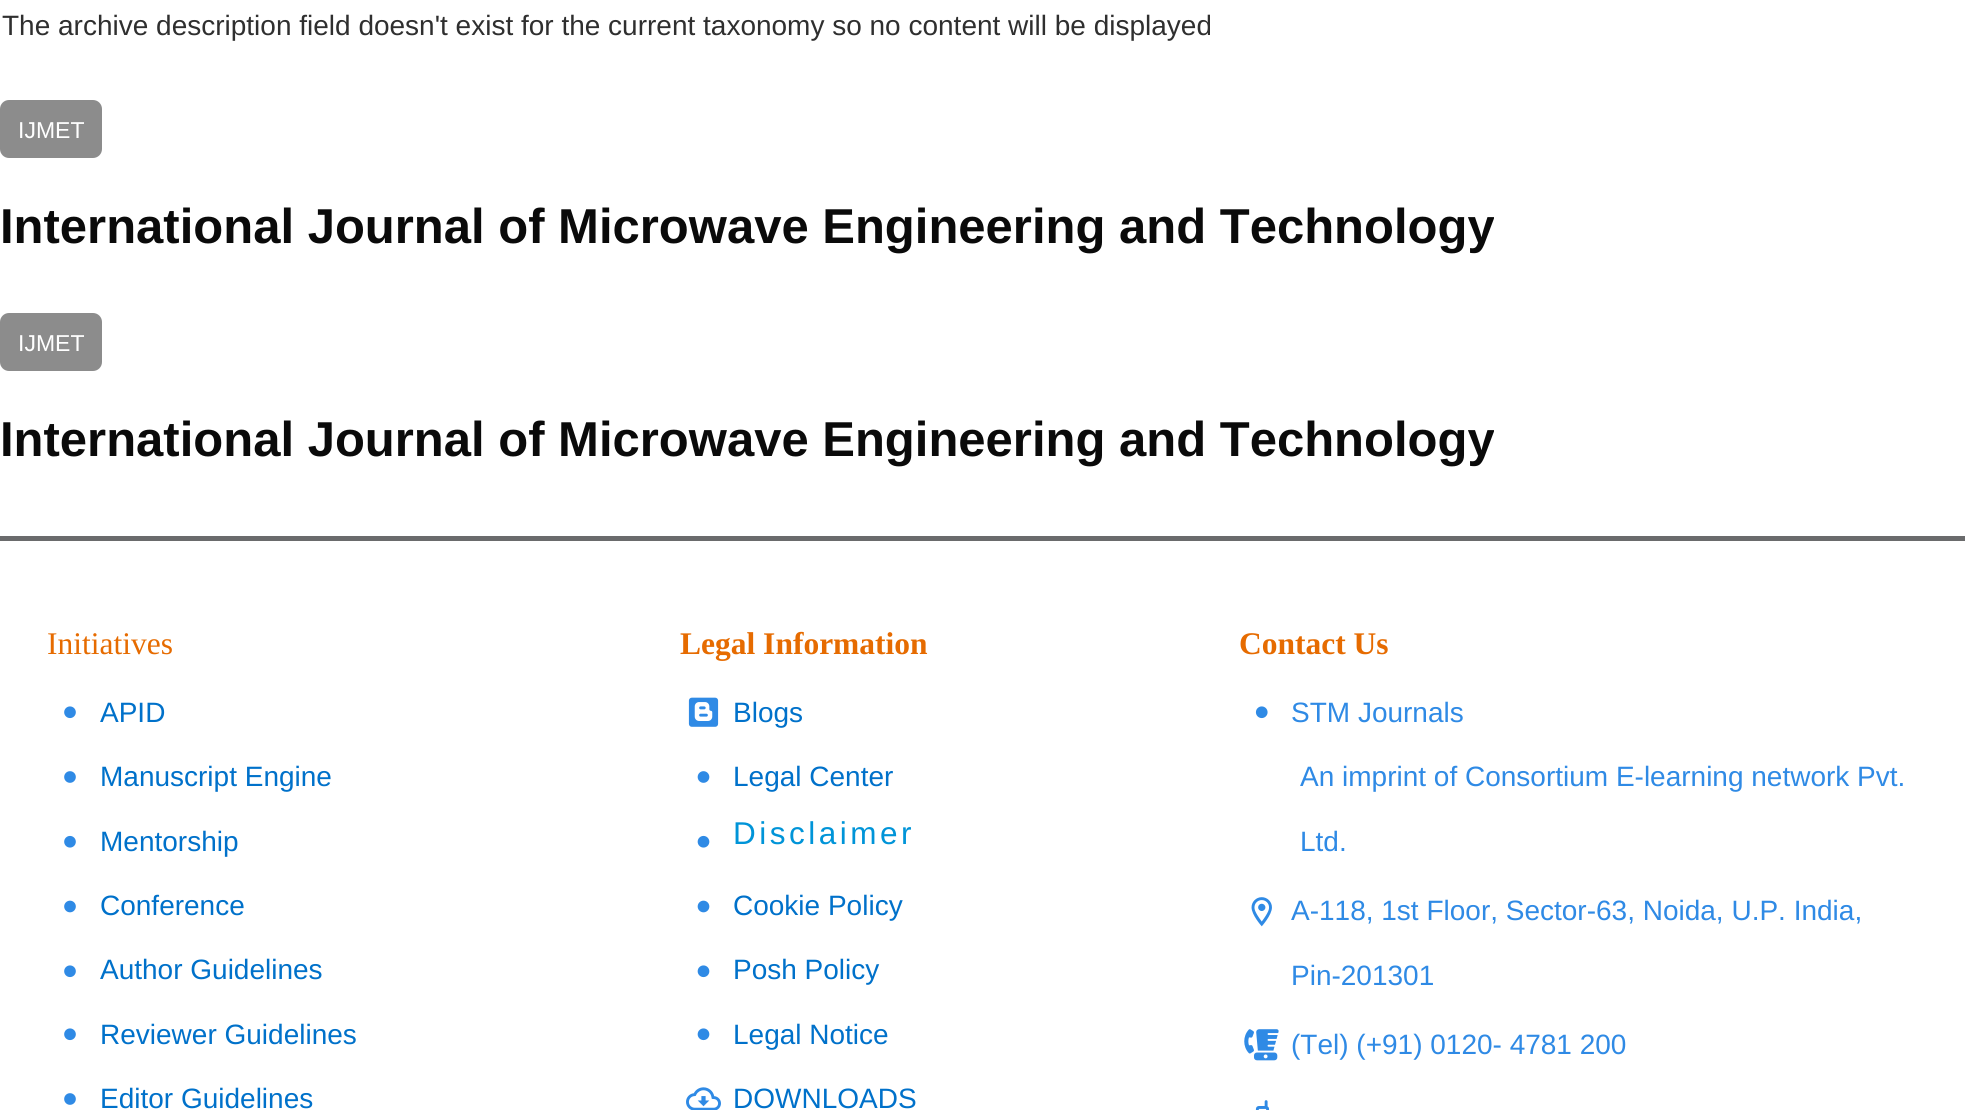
#include <cairo/cairo.h>
#include <math.h>
#include <stddef.h>

static cairo_t *cr;

static void use_color(int r, int g, int b) {
  cairo_set_source_rgb(cr, r / 255.0, g / 255.0, b / 255.0);
}

static void text(double x, double y, const char *s, const char *family, double size, int italic, int bold, int r, int g, int b) {
  cairo_select_font_face(cr, family, italic ? CAIRO_FONT_SLANT_ITALIC : CAIRO_FONT_SLANT_NORMAL,
    bold ? CAIRO_FONT_WEIGHT_BOLD : CAIRO_FONT_WEIGHT_NORMAL);
  cairo_set_font_size(cr, size);
  use_color(r, g, b);
  cairo_move_to(cr, x, y);
  cairo_show_text(cr, s);
}

static void spaced_text(double x, double y, const char *s, double letter, double word) {
  cairo_move_to(cr, x, y);
  while (*s) {
    char ch[5] = {0};
    int n = 0;
    do ch[n++] = *s++; while ((*s & 0xC0) == 0x80);
    cairo_show_text(cr, ch);
    cairo_rel_move_to(cr, letter + word * (*ch == ' '), 0);
  }
}

static void box(double x, double y, double w, double h, int r, int g, int b) {
  use_color(r, g, b);
  cairo_rectangle(cr, x, y, w, h);
  cairo_fill(cr);
}

static void round_rect(double x, double y, double w, double h, double r) {
  cairo_new_sub_path(cr);
  cairo_arc(cr, x + w - r, y + h - r, r, 0, M_PI / 2);
  cairo_arc(cr, x + r, y + h - r, r, M_PI / 2, M_PI);
  cairo_arc(cr, x + r, y + r, r, M_PI, 1.5 * M_PI);
  cairo_arc(cr, x + w - r, y + r, r, 1.5 * M_PI, 2 * M_PI);
  cairo_close_path(cr);
}

static void picture(const char *path, double x, double y, double w, double h) {
  cairo_surface_t *image = cairo_image_surface_create_from_png(path);
  cairo_save(cr);
  cairo_set_source_surface(cr, image, x, y);
  cairo_rectangle(cr, x, y, w, h);
  cairo_fill(cr);
  cairo_restore(cr);
  cairo_surface_destroy(image);
}

static void draw(void) {
  use_color(255, 255, 255);
  cairo_paint(cr);
  use_color(140, 140, 140);
  round_rect(0, 100, 102, 58, 9);
  cairo_fill(cr);
  round_rect(0, 313, 102, 58, 9);
  cairo_fill(cr);
  box(0, 536, 1965, 5, 106, 107, 108);
  picture("img_01.png", 64, 706, 12, 13);
  picture("img_02.png", 64, 771, 12, 12);
  picture("img_03.png", 64, 835, 12, 13);
  picture("img_04.png", 64, 900, 12, 13);
  picture("img_01.png", 64, 965, 12, 13);
  picture("img_01.png", 64, 1028, 12, 13);
  picture("img_02.png", 64, 1093, 12, 12);
  picture("img_05.png", 688, 697, 31, 30);
  picture("img_06.png", 697, 771, 13, 12);
  picture("img_07.png", 697, 835, 13, 13);
  picture("img_08.png", 697, 900, 13, 13);
  picture("img_09.png", 697, 965, 13, 13);
  picture("img_09.png", 697, 1028, 13, 13);
  picture("img_10.png", 686, 1087, 35, 23);
  picture("img_11.png", 1255, 706, 13, 13);
  picture("img_12.png", 1251, 897, 21, 30);
  picture("img_13.png", 1244, 1029, 35, 32);
  picture("img_14.png", 1255, 1100, 15, 10);
  text(2, 35, "The archive description field doesn't exist for the current taxonomy so no content will be displayed", "Liberation Sans", 28, 0, 0, 47, 47, 47);
  text(18, 138, "IJMET", "Liberation Sans", 23, 0, 0, 255, 255, 255);
  text(0, 243, "International Journal of Microwave Engineering and Technology", "Liberation Sans", 49, 0, 1, 10, 10, 10);
  text(18, 351, "IJMET", "Liberation Sans", 23, 0, 0, 255, 255, 255);
  text(0, 456, "International Journal of Microwave Engineering and Technology", "Liberation Sans", 49, 0, 1, 10, 10, 10);
  text(47, 654, "Initiatives", "Liberation Serif", 31.5, 0, 0, 230, 107, 0);
  text(100, 722, "APID", "Liberation Sans", 28, 0, 0, 0, 113, 202);
  text(100, 786, "Manuscript Engine", "Liberation Sans", 28, 0, 0, 0, 113, 202);
  text(100, 851, "Mentorship", "Liberation Sans", 28, 0, 0, 0, 113, 202);
  text(100, 915, "Conference", "Liberation Sans", 28, 0, 0, 0, 113, 202);
  text(100, 979, "Author Guidelines", "Liberation Sans", 28, 0, 0, 0, 113, 202);
  text(100, 1044, "Reviewer Guidelines", "Liberation Sans", 28, 0, 0, 0, 113, 202);
  text(100, 1108, "Editor Guidelines", "Liberation Sans", 28, 0, 0, 0, 113, 202);
  text(680, 654, "Legal Information", "Liberation Serif", 31.5, 0, 1, 230, 107, 0);
  text(733, 722, "Blogs", "Liberation Sans", 28, 0, 0, 0, 113, 202);
  text(733, 786, "Legal Center", "Liberation Sans", 28, 0, 0, 0, 113, 202);
  cairo_set_font_size(cr, 31.5);
  use_color(0, 148, 216);
  spaced_text(733, 844, "Disclaimer", 3.5, 0);
  text(733, 915, "Cookie Policy", "Liberation Sans", 28, 0, 0, 0, 113, 202);
  text(733, 979, "Posh Policy", "Liberation Sans", 28, 0, 0, 0, 113, 202);
  text(733, 1044, "Legal Notice", "Liberation Sans", 28, 0, 0, 0, 113, 202);
  text(733, 1108, "DOWNLOADS", "Liberation Sans", 28, 0, 0, 0, 113, 202);
  text(1239, 654, "Contact Us", "Liberation Serif", 31.5, 0, 1, 230, 107, 0);
  text(1291, 722, "STM Journals", "Liberation Sans", 28, 0, 0, 47, 138, 229);
  text(1300, 786, "An imprint of Consortium E-learning network Pvt.", "Liberation Sans", 28, 0, 0, 47, 138, 229);
  text(1300, 851, "Ltd.", "Liberation Sans", 28, 0, 0, 47, 138, 229);
  text(1291, 920, "A-118, 1st Floor, Sector-63, Noida, U.P. India,", "Liberation Sans", 28, 0, 0, 47, 138, 229);
  text(1291, 985, "Pin-201301", "Liberation Sans", 28, 0, 0, 47, 138, 229);
  text(1291, 1054, "(Tel) (+91) 0120- 4781 200", "Liberation Sans", 28, 0, 0, 47, 138, 229);
}

int main(void) {
  cairo_surface_t *surface = cairo_image_surface_create(CAIRO_FORMAT_RGB24, 1965, 1110);
  cr = cairo_create(surface);
  cairo_font_options_t *options = cairo_font_options_create();
  cairo_font_options_set_hint_metrics(options, CAIRO_HINT_METRICS_OFF);
  cairo_font_options_set_hint_style(options, CAIRO_HINT_STYLE_NONE);
  cairo_set_font_options(cr, options);
  cairo_set_miter_limit(cr, 4);
  draw();
  cairo_surface_write_to_png(surface, "out.png");
  cairo_font_options_destroy(options);
  cairo_destroy(cr);
  cairo_surface_destroy(surface);
  return 0;
}
